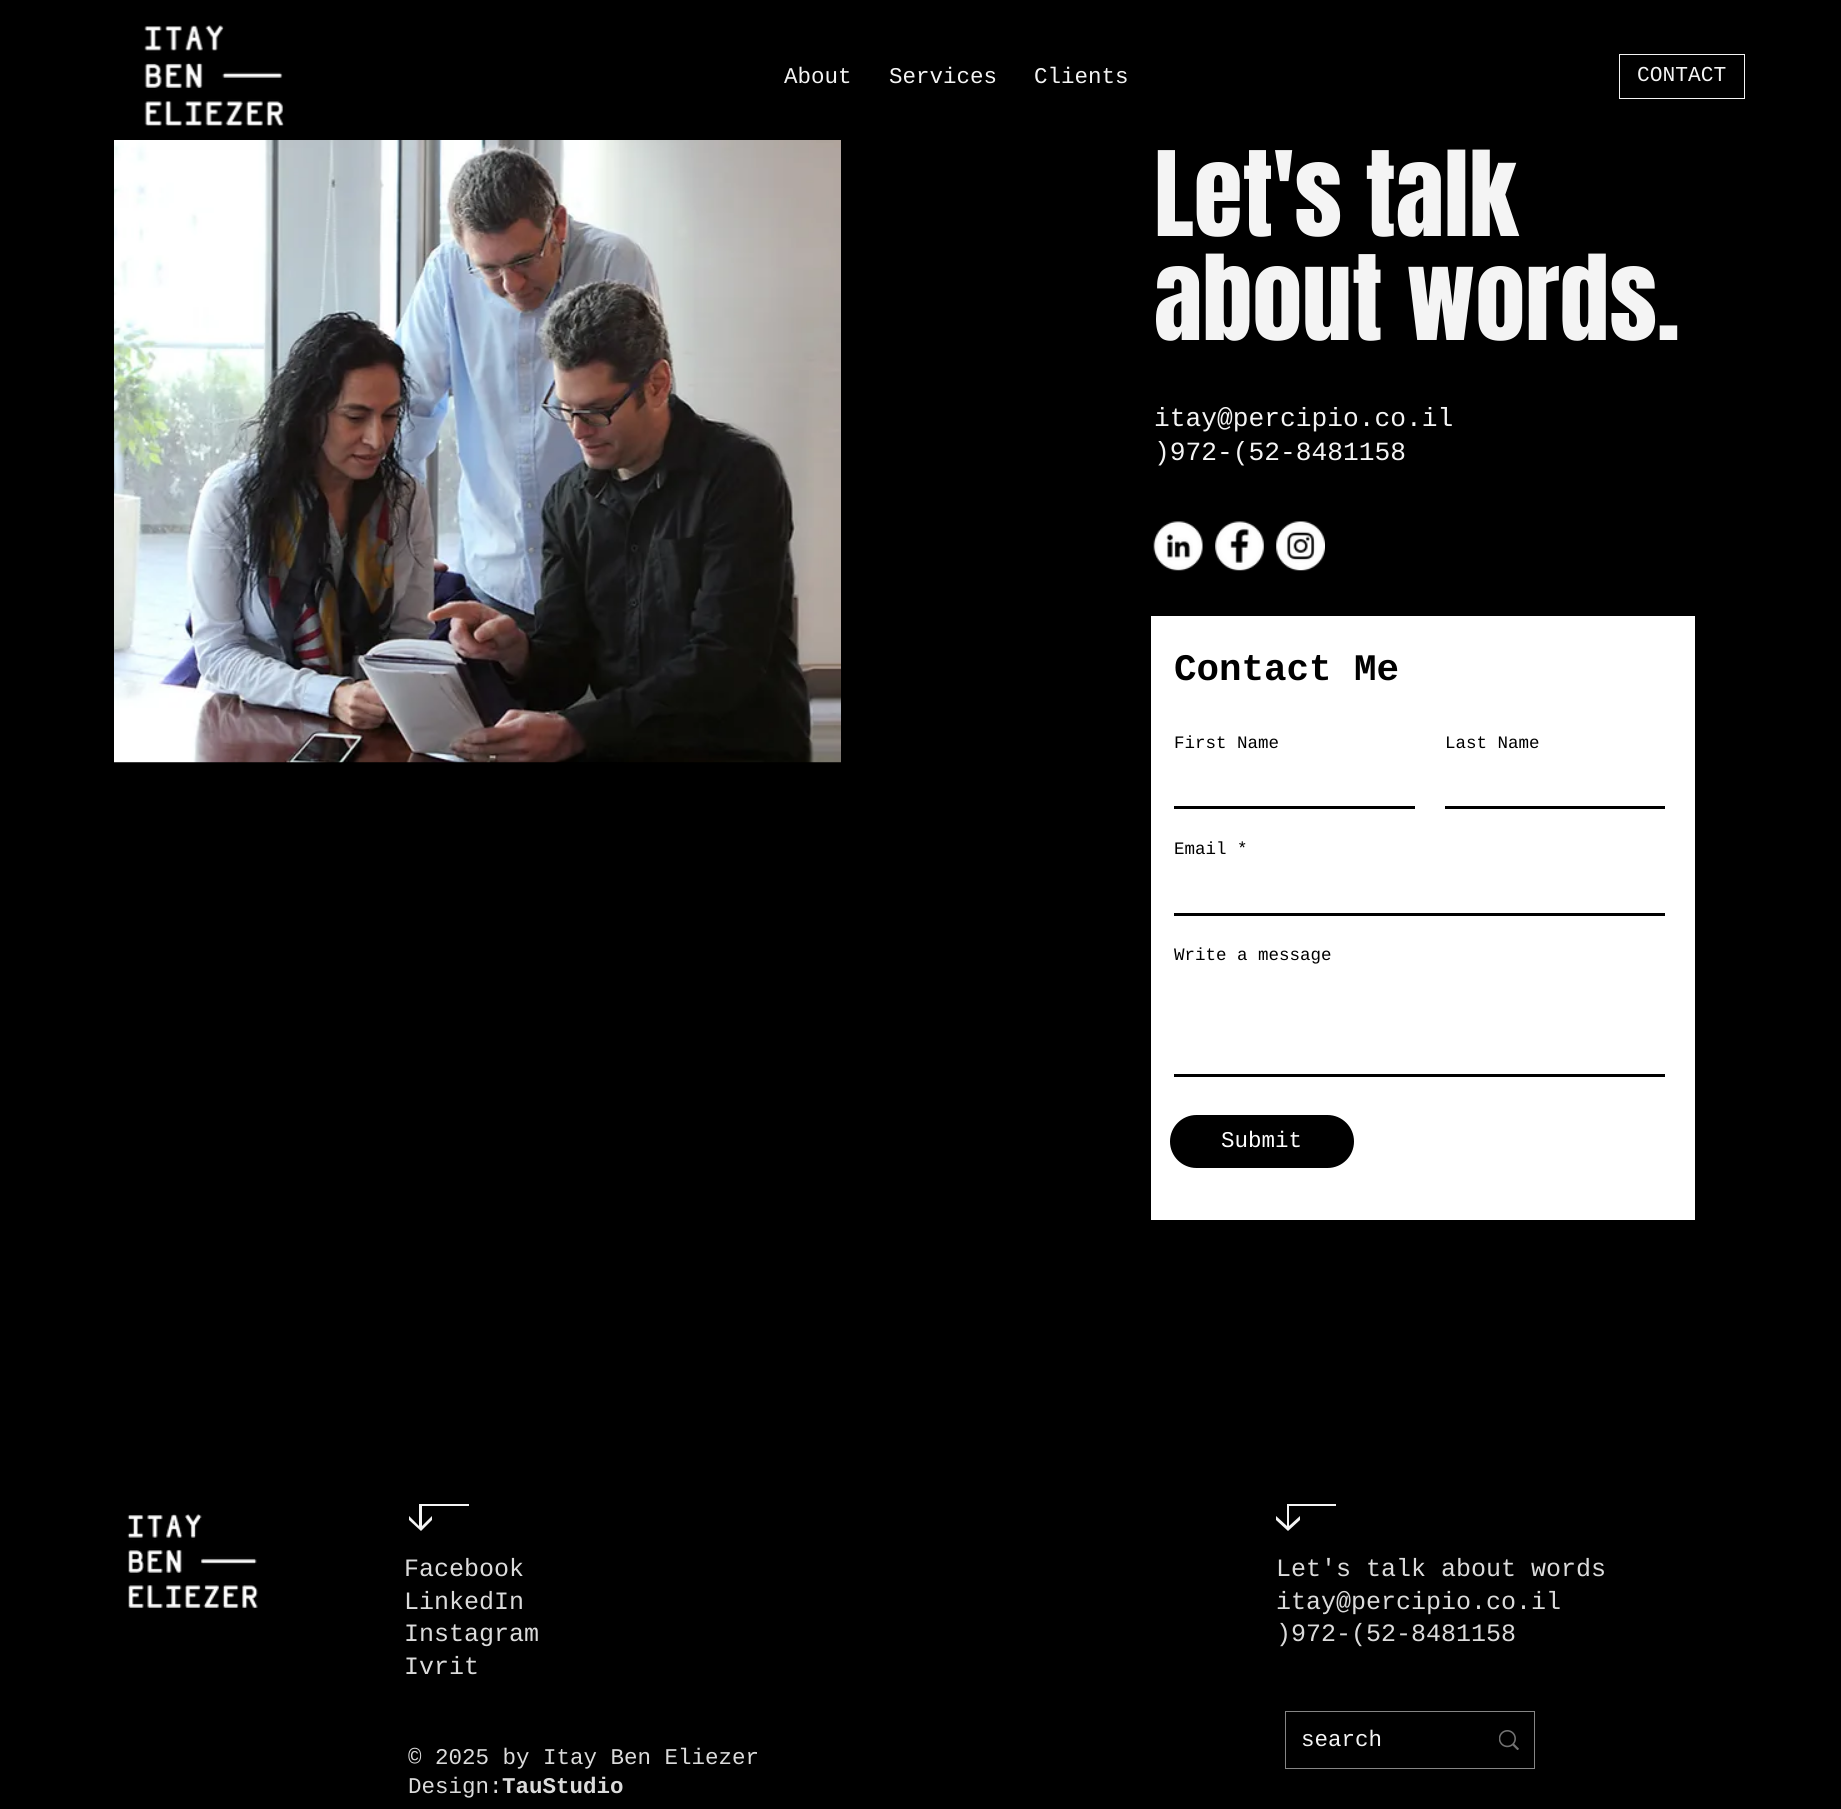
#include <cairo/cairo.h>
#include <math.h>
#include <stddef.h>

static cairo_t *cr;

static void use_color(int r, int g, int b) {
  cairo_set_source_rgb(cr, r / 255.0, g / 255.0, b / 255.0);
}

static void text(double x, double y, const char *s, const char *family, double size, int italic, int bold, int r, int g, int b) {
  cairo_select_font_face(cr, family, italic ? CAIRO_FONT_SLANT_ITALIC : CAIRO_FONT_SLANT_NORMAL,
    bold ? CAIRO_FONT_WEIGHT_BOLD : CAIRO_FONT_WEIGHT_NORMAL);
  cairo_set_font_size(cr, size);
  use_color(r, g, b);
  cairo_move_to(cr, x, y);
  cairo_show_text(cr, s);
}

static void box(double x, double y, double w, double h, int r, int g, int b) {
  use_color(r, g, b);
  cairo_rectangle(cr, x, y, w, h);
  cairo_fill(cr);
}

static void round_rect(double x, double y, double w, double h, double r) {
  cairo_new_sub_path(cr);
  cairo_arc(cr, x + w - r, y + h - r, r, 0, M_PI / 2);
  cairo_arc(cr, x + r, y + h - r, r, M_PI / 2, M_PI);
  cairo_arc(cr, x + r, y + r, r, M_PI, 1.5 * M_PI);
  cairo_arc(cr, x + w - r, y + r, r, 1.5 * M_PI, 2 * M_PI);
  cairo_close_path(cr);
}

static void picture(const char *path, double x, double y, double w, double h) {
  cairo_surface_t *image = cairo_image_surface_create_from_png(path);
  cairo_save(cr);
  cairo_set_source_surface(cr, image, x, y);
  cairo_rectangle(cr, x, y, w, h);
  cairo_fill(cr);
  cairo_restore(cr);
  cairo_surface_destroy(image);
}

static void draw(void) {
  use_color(0, 0, 0);
  cairo_paint(cr);
  picture("img_01.png", 144, 25, 140, 101);
  cairo_rectangle(cr, 1619.5, 54.5, 125, 44);
  use_color(244, 244, 244);
  cairo_set_line_width(cr, 1);
  cairo_stroke(cr);
  picture("img_02.png", 114, 140, 727, 623);
  picture("img_03.png", 1153, 521, 50, 50);
  picture("img_04.png", 1215, 521, 49, 50);
  picture("img_05.png", 1276, 521, 49, 50);
  box(1151, 616, 544, 604, 255, 255, 255);
  box(1174, 806, 241, 3, 0, 0, 0);
  box(1445, 806, 220, 3, 0, 0, 0);
  box(1174, 913, 491, 3, 0, 0, 0);
  box(1174, 1074, 491, 3, 0, 0, 0);
  round_rect(1171.5, 1116.5, 181, 50, 25);
  cairo_fill_preserve(cr);
  cairo_set_line_width(cr, 3);
  cairo_stroke(cr);
  picture("img_06.png", 127, 1514, 131, 94);
  use_color(244, 244, 244);
  cairo_new_path(cr);
  cairo_move_to(cr, 469, 1506);
  cairo_line_to(cr, 469, 1504);
  cairo_line_to(cr, 419, 1504);
  cairo_line_to(cr, 419, 1526);
  cairo_line_to(cr, 409, 1516);
  cairo_line_to(cr, 409, 1520);
  cairo_line_to(cr, 421, 1531);
  cairo_line_to(cr, 432, 1520);
  cairo_line_to(cr, 432, 1516);
  cairo_line_to(cr, 422, 1526);
  cairo_line_to(cr, 422, 1506);
  cairo_close_path(cr);
  cairo_fill(cr);
  cairo_new_path(cr);
  cairo_move_to(cr, 1336, 1506);
  cairo_line_to(cr, 1336, 1504);
  cairo_line_to(cr, 1287, 1504);
  cairo_line_to(cr, 1287, 1526);
  cairo_line_to(cr, 1276, 1516);
  cairo_line_to(cr, 1276, 1520);
  cairo_line_to(cr, 1288, 1531);
  cairo_line_to(cr, 1300, 1520);
  cairo_line_to(cr, 1300, 1516);
  cairo_line_to(cr, 1289, 1526);
  cairo_line_to(cr, 1289, 1506);
  cairo_close_path(cr);
  cairo_fill(cr);
  cairo_rectangle(cr, 1285.5, 1711.5, 249, 57);
  use_color(133, 133, 133);
  cairo_set_line_width(cr, 1);
  cairo_stroke(cr);
  picture("img_07.png", 1499, 1730, 20, 20);
  text(784, 83, "About", "Liberation Mono", 22.5, 0, 0, 244, 244, 244);
  text(889, 83, "Services", "Liberation Mono", 22.5, 0, 0, 244, 244, 244);
  text(1034, 83, "Clients", "Liberation Mono", 22.5, 0, 0, 244, 244, 244);
  text(1637, 81, "CONTACT", "Liberation Mono", 21.25, 0, 0, 244, 244, 244);
  text(1154, 236, "Let's talk", "Anton", 100, 0, 0, 244, 244, 244);
  text(1154, 340, "about words.", "Anton", 100, 0, 0, 244, 244, 244);
  text(1154, 426, "itay@percipio.co.il", "Liberation Mono", 26.25, 0, 0, 244, 244, 244);
  text(1154, 460, ")972-(52-8481158", "Liberation Mono", 26.25, 0, 0, 244, 244, 244);
  text(1174, 680, "Contact Me", "Liberation Mono", 37.5, 0, 1, 0, 0, 0);
  text(1174, 748, "First Name", "Liberation Mono", 17.5, 0, 0, 0, 0, 0);
  text(1445, 748, "Last Name", "Liberation Mono", 17.5, 0, 0, 0, 0, 0);
  text(1174, 854, "Email *", "Liberation Mono", 17.5, 0, 0, 0, 0, 0);
  text(1174, 960, "Write a message", "Liberation Mono", 17.5, 0, 0, 0, 0, 0);
  text(1221, 1147, "Submit", "Liberation Mono", 22.5, 0, 0, 255, 255, 255);
  text(404, 1576, "Facebook", "Liberation Mono", 25, 0, 0, 219, 219, 219);
  text(404, 1609, "LinkedIn", "Liberation Mono", 25, 0, 0, 219, 219, 219);
  text(404, 1641, "Instagram", "Liberation Mono", 25, 0, 0, 219, 219, 219);
  text(404, 1674, "Ivrit", "Liberation Mono", 25, 0, 0, 219, 219, 219);
  text(408, 1764, "© 2025 by Itay Ben Eliezer", "Liberation Mono", 22.5, 0, 0, 219, 219, 219);
  text(408, 1793, "Design:", "Liberation Mono", 22.5, 0, 0, 219, 219, 219);
  text(502, 1793, "TauStudio", "Liberation Mono", 22.5, 0, 1, 219, 219, 219);
  text(1276, 1576, "Let's talk about words", "Liberation Mono", 25, 0, 0, 219, 219, 219);
  text(1276, 1609, "itay@percipio.co.il", "Liberation Mono", 25, 0, 0, 219, 219, 219);
  text(1276, 1641, ")972-(52-8481158", "Liberation Mono", 25, 0, 0, 219, 219, 219);
  text(1301, 1746, "search", "Liberation Mono", 22.5, 0, 0, 244, 244, 244);
}

int main(void) {
  cairo_surface_t *surface = cairo_image_surface_create(CAIRO_FORMAT_RGB24, 1841, 1809);
  cr = cairo_create(surface);
  cairo_font_options_t *options = cairo_font_options_create();
  cairo_font_options_set_hint_metrics(options, CAIRO_HINT_METRICS_OFF);
  cairo_font_options_set_hint_style(options, CAIRO_HINT_STYLE_NONE);
  cairo_set_font_options(cr, options);
  cairo_set_miter_limit(cr, 4);
  draw();
  cairo_surface_write_to_png(surface, "out.png");
  cairo_font_options_destroy(options);
  cairo_destroy(cr);
  cairo_surface_destroy(surface);
  return 0;
}
